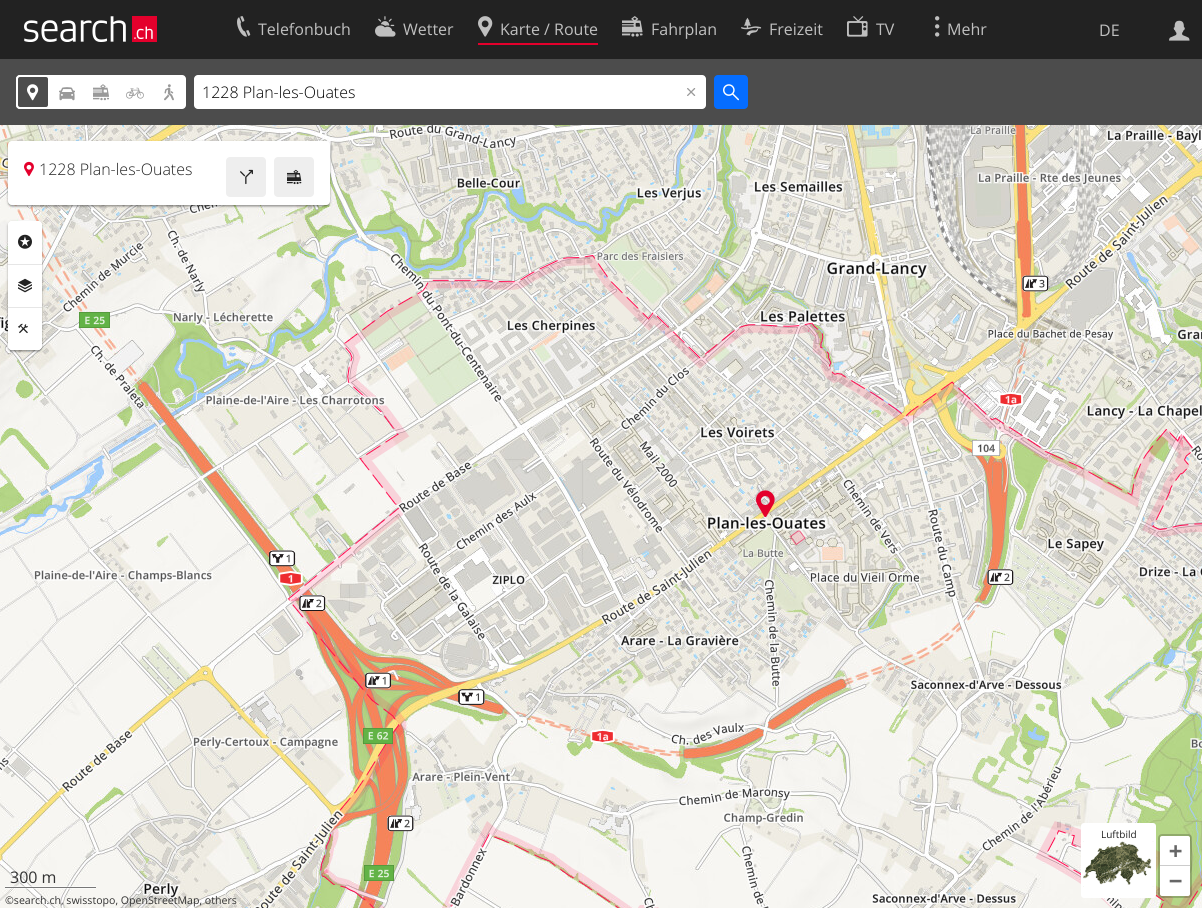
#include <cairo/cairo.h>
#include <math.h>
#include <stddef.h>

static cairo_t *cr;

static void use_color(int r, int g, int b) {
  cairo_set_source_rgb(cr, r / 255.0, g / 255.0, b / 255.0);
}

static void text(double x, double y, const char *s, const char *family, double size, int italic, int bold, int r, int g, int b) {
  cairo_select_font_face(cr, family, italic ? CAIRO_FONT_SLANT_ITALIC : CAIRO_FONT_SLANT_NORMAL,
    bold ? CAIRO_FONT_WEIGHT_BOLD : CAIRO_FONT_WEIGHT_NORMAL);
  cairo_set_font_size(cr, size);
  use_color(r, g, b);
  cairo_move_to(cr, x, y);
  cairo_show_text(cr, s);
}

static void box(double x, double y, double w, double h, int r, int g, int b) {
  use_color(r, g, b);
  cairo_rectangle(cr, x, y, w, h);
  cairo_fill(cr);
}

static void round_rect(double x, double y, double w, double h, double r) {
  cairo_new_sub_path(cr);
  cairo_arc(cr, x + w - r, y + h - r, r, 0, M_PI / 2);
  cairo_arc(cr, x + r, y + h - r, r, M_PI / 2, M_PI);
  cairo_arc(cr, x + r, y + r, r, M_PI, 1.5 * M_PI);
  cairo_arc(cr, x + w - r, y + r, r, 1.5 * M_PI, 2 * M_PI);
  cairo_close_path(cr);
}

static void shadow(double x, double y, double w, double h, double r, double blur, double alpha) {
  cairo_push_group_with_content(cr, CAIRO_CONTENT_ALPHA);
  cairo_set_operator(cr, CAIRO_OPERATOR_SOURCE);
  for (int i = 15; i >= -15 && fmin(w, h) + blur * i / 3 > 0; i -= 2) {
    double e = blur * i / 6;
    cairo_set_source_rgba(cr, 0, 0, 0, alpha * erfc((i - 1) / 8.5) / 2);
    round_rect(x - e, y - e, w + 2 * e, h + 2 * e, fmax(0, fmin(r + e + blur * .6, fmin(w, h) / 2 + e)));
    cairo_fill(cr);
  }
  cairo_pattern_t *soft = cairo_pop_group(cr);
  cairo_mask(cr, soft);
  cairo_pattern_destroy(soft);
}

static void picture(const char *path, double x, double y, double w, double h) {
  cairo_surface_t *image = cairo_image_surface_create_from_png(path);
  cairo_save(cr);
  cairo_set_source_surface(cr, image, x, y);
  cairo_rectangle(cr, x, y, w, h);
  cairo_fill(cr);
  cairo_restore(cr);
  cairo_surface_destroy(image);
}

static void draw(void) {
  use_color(255, 255, 255);
  cairo_paint(cr);
  box(0, 0, 1202, 59, 34, 34, 34);
  picture("img_01.png", 24, 16, 133, 26);
  picture("img_02.png", 237, 16, 14, 21);
  picture("img_03.png", 375, 16, 21, 21);
  box(478, 43, 120, 2, 228, 0, 44);
  picture("img_04.png", 478, 16, 15, 21);
  picture("img_05.png", 622, 16, 21, 21);
  picture("img_06.png", 741, 17, 21, 19);
  picture("img_07.png", 847, 16, 21, 21);
  picture("img_08.png", 935, 16, 5, 21);
  picture("img_09.png", 1169, 20, 21, 21);
  box(0, 59, 1202, 66, 76, 76, 76);
  use_color(255, 255, 255);
  round_rect(16, 75, 170, 34, 4);
  cairo_fill(cr);
  use_color(76, 76, 76);
  round_rect(17, 76, 32, 32, 3);
  cairo_fill_preserve(cr);
  use_color(255, 255, 255);
  cairo_stroke(cr);
  picture("img_10.png", 27, 84, 12, 17);
  picture("img_11.png", 59, 87, 16, 14);
  picture("img_12.png", 93, 84, 17, 17);
  picture("img_13.png", 126, 87, 18, 12);
  picture("img_14.png", 164, 84, 10, 17);
  round_rect(194, 75, 512, 34, 4);
  cairo_fill(cr);
  picture("img_15.png", 687, 88, 9, 8);
  use_color(5, 109, 255);
  round_rect(714, 75, 34, 34, 4);
  cairo_fill(cr);
  picture("img_16.png", 723, 84, 16, 17);
  picture("img_28.png", 0, 129, 33, 512);
  picture("img_29.png", 33, 129, 512, 512);
  picture("img_39.png", 0, 155, 33, 178);
  picture("img_40.png", 33, 129, 512, 512);
  cairo_save(cr);
  cairo_set_fill_rule(cr, CAIRO_FILL_RULE_EVEN_ODD);
  cairo_new_path(cr);
  cairo_move_to(cr, 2, 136);
  cairo_line_to(cr, 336, 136);
  cairo_line_to(cr, 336, 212);
  cairo_line_to(cr, 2, 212);
  cairo_close_path(cr);
  cairo_move_to(cr, 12, 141);
  cairo_line_to(cr, 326, 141);
  cairo_curve_to(cr, 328, 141, 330, 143, 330, 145);
  cairo_line_to(cr, 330, 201);
  cairo_curve_to(cr, 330, 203, 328, 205, 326, 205);
  cairo_line_to(cr, 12, 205);
  cairo_curve_to(cr, 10, 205, 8, 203, 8, 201);
  cairo_line_to(cr, 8, 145);
  cairo_curve_to(cr, 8, 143, 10, 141, 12, 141);
  cairo_close_path(cr);
  cairo_clip(cr);
  use_color(0, 0, 0);
  shadow(8, 142, 322, 64, 4, 1.5, 0.2);
  cairo_restore(cr);
  use_color(0, 0, 0);
  shadow(8, 143, 322, 64, 4, 0.5, 0.12);
  shadow(8, 142, 322, 64, 4, 0.5, 0.14);
  use_color(255, 255, 255);
  round_rect(8, 141, 322, 64, 4);
  cairo_fill(cr);
  picture("img_17.png", 24, 161, 10, 16);
  use_color(238, 238, 238);
  round_rect(226, 157, 40, 40, 4);
  cairo_fill(cr);
  picture("img_18.png", 240, 169, 13, 16);
  round_rect(274, 157, 40, 40, 4);
  cairo_fill(cr);
  picture("img_19.png", 287, 169, 15, 16);
  cairo_save(cr);
  cairo_set_fill_rule(cr, CAIRO_FILL_RULE_EVEN_ODD);
  cairo_new_path(cr);
  cairo_move_to(cr, 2, 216);
  cairo_line_to(cr, 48, 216);
  cairo_line_to(cr, 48, 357);
  cairo_line_to(cr, 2, 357);
  cairo_close_path(cr);
  cairo_move_to(cr, 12, 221);
  cairo_line_to(cr, 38, 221);
  cairo_curve_to(cr, 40, 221, 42, 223, 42, 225);
  cairo_line_to(cr, 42, 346);
  cairo_curve_to(cr, 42, 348, 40, 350, 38, 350);
  cairo_line_to(cr, 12, 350);
  cairo_curve_to(cr, 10, 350, 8, 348, 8, 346);
  cairo_line_to(cr, 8, 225);
  cairo_curve_to(cr, 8, 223, 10, 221, 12, 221);
  cairo_close_path(cr);
  cairo_clip(cr);
  use_color(0, 0, 0);
  shadow(8, 222, 34, 129, 4, 1.5, 0.2);
  cairo_restore(cr);
  use_color(0, 0, 0);
  shadow(8, 223, 34, 129, 4, 0.5, 0.12);
  shadow(8, 222, 34, 129, 4, 0.5, 0.14);
  use_color(255, 255, 255);
  round_rect(8, 221, 34, 129, 4);
  cairo_fill(cr);
  cairo_save(cr);
  round_rect(8, 221, 34, 129, 3);
  cairo_clip(cr);
  cairo_new_path(cr);
  cairo_move_to(cr, 12, 221);
  cairo_line_to(cr, 38, 221);
  cairo_curve_to(cr, 40, 221, 42, 223, 42, 225);
  cairo_line_to(cr, 42, 265);
  cairo_line_to(cr, 8, 265);
  cairo_line_to(cr, 8, 225);
  cairo_curve_to(cr, 8, 223, 10, 221, 12, 221);
  cairo_close_path(cr);
  cairo_fill(cr);
  cairo_restore(cr);
  box(8, 264, 34, 1, 230, 230, 230);
  picture("img_20.png", 18, 234, 14, 15);
  box(8, 307, 34, 1, 230, 230, 230);
  picture("img_21.png", 18, 278, 14, 15);
  cairo_save(cr);
  round_rect(8, 221, 34, 129, 3);
  cairo_clip(cr);
  use_color(255, 255, 255);
  cairo_new_path(cr);
  cairo_move_to(cr, 8, 308);
  cairo_line_to(cr, 42, 308);
  cairo_line_to(cr, 42, 346);
  cairo_curve_to(cr, 42, 348, 40, 350, 38, 350);
  cairo_line_to(cr, 12, 350);
  cairo_curve_to(cr, 10, 350, 8, 348, 8, 346);
  cairo_close_path(cr);
  cairo_fill(cr);
  cairo_restore(cr);
  picture("img_22.png", 18, 323, 10, 11);
  picture("img_35.png", 1057, 641, 145, 267);
  picture("img_46.png", 1057, 681, 145, 227);
  use_color(255, 255, 255);
  round_rect(1081, 823, 75, 75, 3);
  cairo_fill(cr);
  picture("img_23.png", 1083, 841, 71, 46);
  picture("img_24.png", 0, 125, 33, 4);
  picture("img_25.png", 33, 125, 512, 4);
  picture("img_26.png", 545, 125, 512, 4);
  picture("img_27.png", 1057, 125, 145, 4);
  picture("img_30.png", 545, 129, 512, 512);
  picture("img_31.png", 1057, 129, 145, 512);
  picture("img_32.png", 0, 641, 33, 267);
  picture("img_33.png", 33, 641, 512, 267);
  picture("img_34.png", 545, 641, 512, 267);
  picture("img_36.png", 390, 125, 66, 4);
  picture("img_37.png", 969, 125, 48, 4);
  picture("img_38.png", 1145, 128, 57, 1);
  picture("img_41.png", 545, 129, 512, 512);
  picture("img_42.png", 1057, 129, 145, 449);
  picture("img_43.png", 0, 756, 11, 17);
  picture("img_44.png", 60, 641, 485, 267);
  picture("img_45.png", 545, 641, 512, 267);
  picture("img_47.png", 756, 490, 19, 28);
  round_rect(1159, 835, 32, 62, 3);
  cairo_set_source_rgba(cr, 0, 0, 0, 0.2);
  cairo_stroke(cr);
  use_color(255, 255, 255);
  cairo_new_path(cr);
  cairo_move_to(cr, 1162, 836);
  cairo_line_to(cr, 1188, 836);
  cairo_curve_to(cr, 1189, 836, 1190, 837, 1190, 838);
  cairo_line_to(cr, 1190, 866);
  cairo_line_to(cr, 1160, 866);
  cairo_line_to(cr, 1160, 838);
  cairo_curve_to(cr, 1160, 837, 1161, 836, 1162, 836);
  cairo_close_path(cr);
  cairo_fill(cr);
  box(1160, 865, 30, 1, 204, 204, 204);
  use_color(255, 255, 255);
  cairo_new_path(cr);
  cairo_move_to(cr, 1160, 866);
  cairo_line_to(cr, 1190, 866);
  cairo_line_to(cr, 1190, 894);
  cairo_curve_to(cr, 1190, 895, 1189, 896, 1188, 896);
  cairo_line_to(cr, 1162, 896);
  cairo_curve_to(cr, 1161, 896, 1160, 895, 1160, 894);
  cairo_close_path(cr);
  cairo_fill(cr);
  cairo_set_source_rgba(cr, 1, 1, 1, 0.5);
  cairo_rectangle(cr, 5, 888, 91, 1);
  cairo_fill(cr);
  cairo_rectangle(cr, 5, 886, 91, 1);
  cairo_fill(cr);
  box(5, 887, 91, 1, 119, 119, 119);
  text(258, 35, "Telefonbuch", "Open Sans", 16, 0, 0, 191, 191, 191);
  text(403, 35, "Wetter", "Open Sans", 16, 0, 0, 191, 191, 191);
  text(500, 35, "Karte / Route", "Open Sans", 16, 0, 0, 191, 191, 191);
  text(651, 35, "Fahrplan", "Open Sans", 16, 0, 0, 191, 191, 191);
  text(769, 35, "Freizeit", "Open Sans", 16, 0, 0, 191, 191, 191);
  text(876, 35, "TV", "Open Sans", 16, 0, 0, 191, 191, 191);
  text(947, 35, "Mehr", "Open Sans", 16, 0, 0, 191, 191, 191);
  text(1099, 36, "DE", "Open Sans", 16, 0, 0, 191, 191, 191);
  text(202, 98, "1228 Plan-les-Ouates", "Open Sans Light", 16, 0, 0, 0, 0, 0);
  text(39, 175, "1228 Plan-les-Ouates", "Open Sans Light", 16, 0, 0, 34, 34, 34);
  text(1101, 838, "Luftbild", "Open Sans", 10, 0, 0, 34, 34, 34);
  text(1169, 858, "+", "DejaVu Sans Mono", 22, 0, 1, 102, 102, 102);
  text(1169, 888, "−", "DejaVu Sans Mono", 22, 0, 1, 102, 102, 102);
  text(10, 883, "300 m", "Open Sans", 16, 0, 0, 51, 51, 51);
  text(5, 904, "©search.ch, swisstopo, OpenStreetMap, others", "Open Sans", 10.6, 0, 0, 51, 51, 51);
}

int main(void) {
  cairo_surface_t *surface = cairo_image_surface_create(CAIRO_FORMAT_RGB24, 1202, 908);
  cr = cairo_create(surface);
  cairo_font_options_t *options = cairo_font_options_create();
  cairo_font_options_set_hint_metrics(options, CAIRO_HINT_METRICS_OFF);
  cairo_font_options_set_hint_style(options, CAIRO_HINT_STYLE_NONE);
  cairo_set_font_options(cr, options);
  cairo_set_miter_limit(cr, 4);
  draw();
  cairo_surface_write_to_png(surface, "out.png");
  cairo_font_options_destroy(options);
  cairo_destroy(cr);
  cairo_surface_destroy(surface);
  return 0;
}
